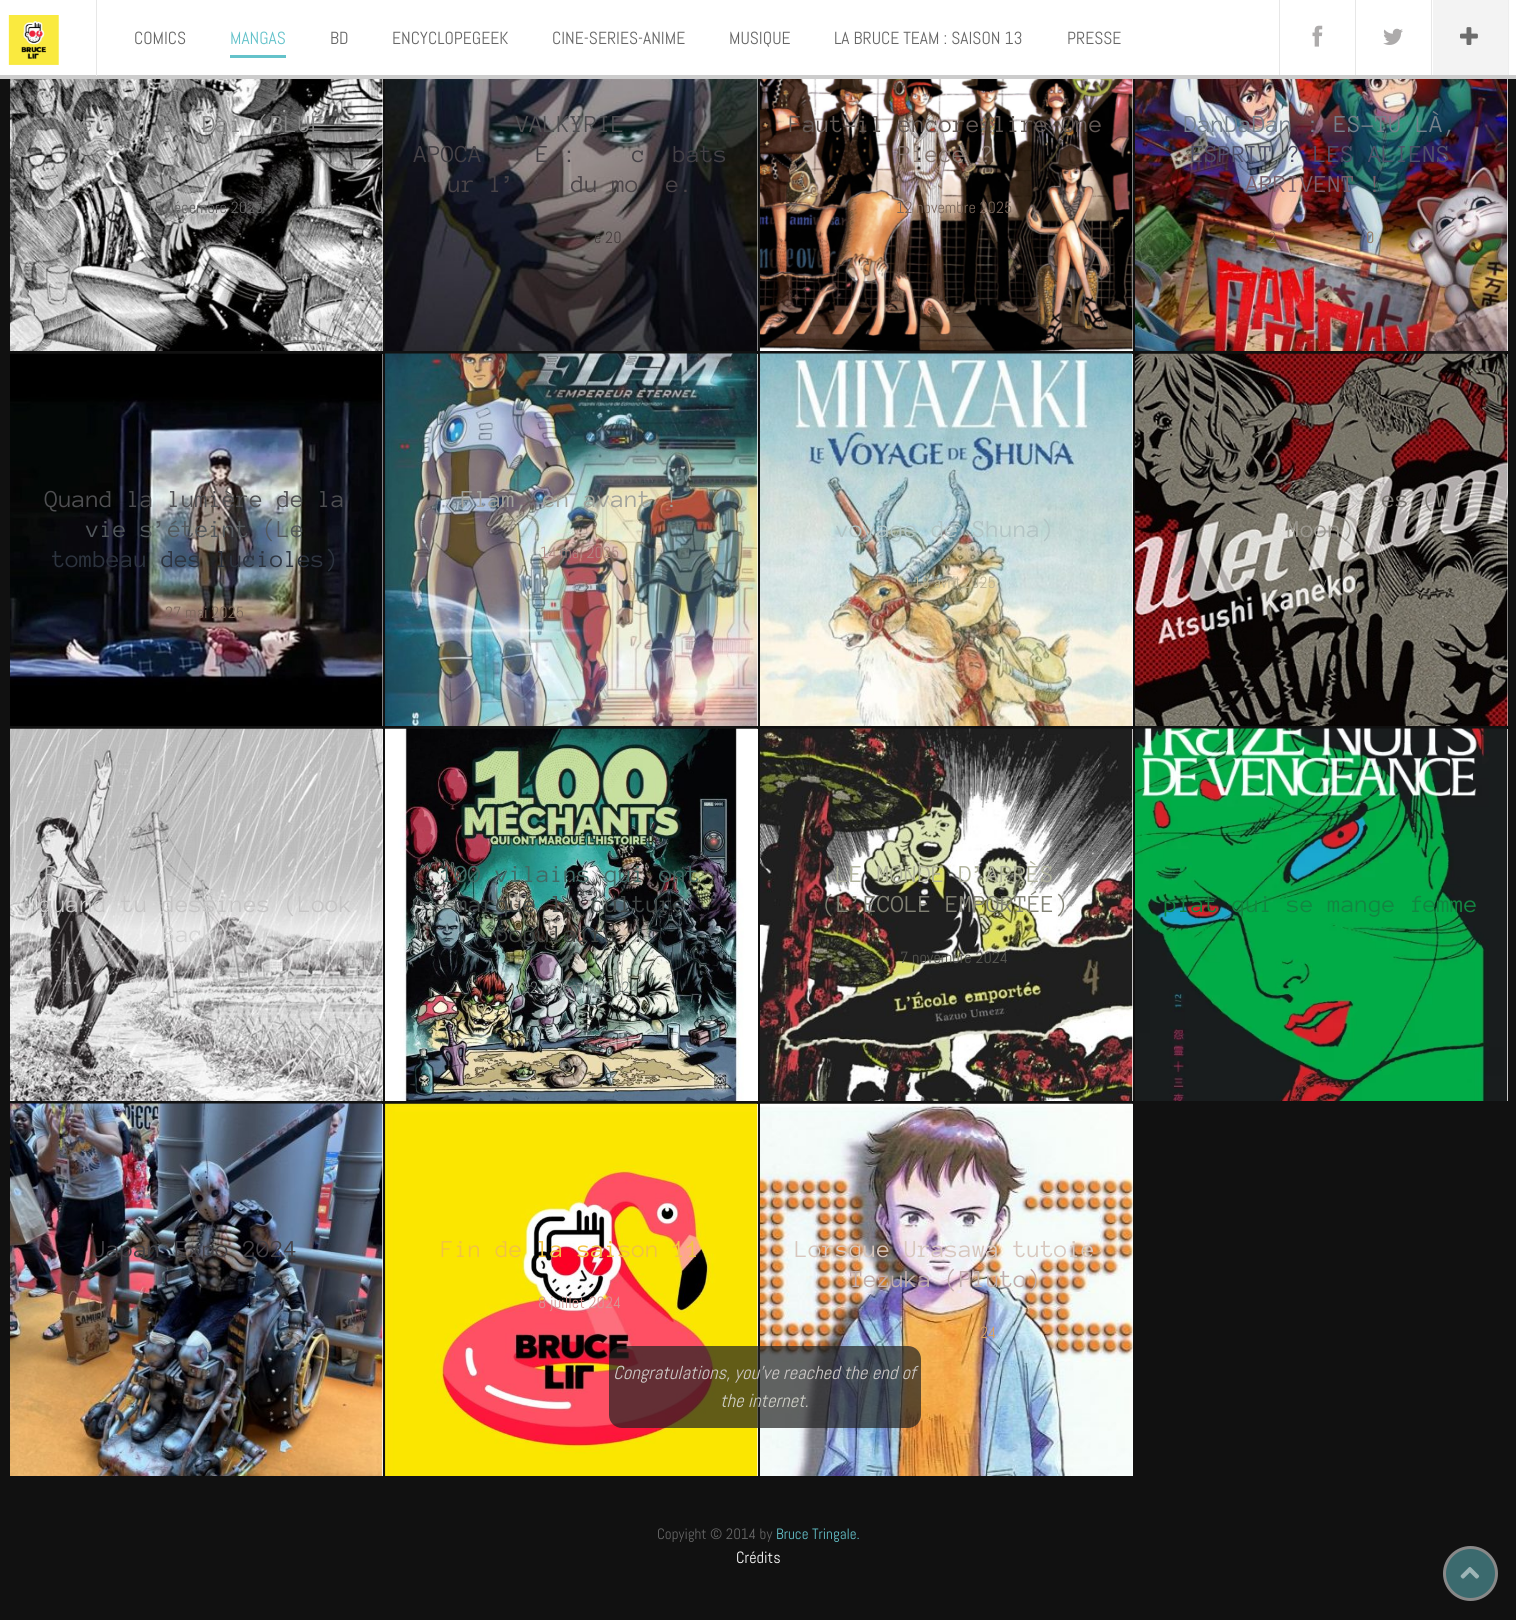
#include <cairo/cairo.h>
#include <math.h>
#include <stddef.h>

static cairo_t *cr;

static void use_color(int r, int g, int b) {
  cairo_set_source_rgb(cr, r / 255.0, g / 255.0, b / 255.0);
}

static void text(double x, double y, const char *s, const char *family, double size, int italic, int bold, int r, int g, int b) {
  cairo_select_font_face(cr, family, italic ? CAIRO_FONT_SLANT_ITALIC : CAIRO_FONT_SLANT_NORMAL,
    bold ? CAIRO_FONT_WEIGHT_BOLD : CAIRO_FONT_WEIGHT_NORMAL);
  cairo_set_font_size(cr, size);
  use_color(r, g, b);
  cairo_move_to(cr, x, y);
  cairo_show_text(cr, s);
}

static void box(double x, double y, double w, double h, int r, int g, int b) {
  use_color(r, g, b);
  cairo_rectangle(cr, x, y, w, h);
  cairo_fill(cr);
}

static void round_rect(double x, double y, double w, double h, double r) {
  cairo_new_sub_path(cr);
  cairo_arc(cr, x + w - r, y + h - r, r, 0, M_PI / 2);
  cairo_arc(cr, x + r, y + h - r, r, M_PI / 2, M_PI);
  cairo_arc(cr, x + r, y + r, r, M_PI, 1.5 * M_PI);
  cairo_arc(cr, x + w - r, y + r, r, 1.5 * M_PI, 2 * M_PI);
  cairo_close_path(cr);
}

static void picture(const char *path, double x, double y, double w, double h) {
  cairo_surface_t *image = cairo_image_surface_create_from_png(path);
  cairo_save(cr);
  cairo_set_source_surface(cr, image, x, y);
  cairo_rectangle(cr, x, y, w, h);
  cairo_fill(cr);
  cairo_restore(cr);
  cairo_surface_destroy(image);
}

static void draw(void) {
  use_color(17, 17, 17);
  cairo_paint(cr);
  box(0, 0, 1516, 75, 255, 255, 255);
  box(0, 75, 1516, 4, 204, 204, 204);
  picture("img_01.png", 8, 15, 51, 50);
  box(96, 0, 1, 76, 231, 231, 231);
  box(230, 55, 56, 3, 100, 194, 202);
  box(1355, 0, 1, 75, 231, 231, 231);
  box(1279, 0, 1, 75, 231, 231, 231);
  picture("img_02.png", 1312, 25, 11, 22);
  box(1431, 0, 1, 75, 231, 231, 231);
  picture("img_03.png", 1383, 28, 20, 17);
  box(1433, 0, 75, 75, 243, 243, 243);
  box(1508, 0, 1, 75, 238, 238, 238);
  picture("img_04.png", 1460, 27, 18, 18);
  box(382, 79, 1, 272, 255, 255, 255);
  picture("img_05.png", 10, 79, 373, 272);
  box(757, 79, 1, 272, 255, 255, 255);
  picture("img_06.png", 385, 79, 373, 272);
  box(1132, 79, 1, 272, 255, 255, 255);
  picture("img_07.png", 760, 79, 373, 272);
  box(1507, 79, 1, 272, 255, 255, 255);
  picture("img_08.png", 1135, 79, 373, 272);
  box(382, 354, 1, 372, 255, 255, 255);
  picture("img_09.png", 10, 353, 373, 373);
  box(757, 354, 1, 372, 255, 255, 255);
  picture("img_10.png", 385, 353, 373, 373);
  box(1132, 354, 1, 372, 255, 255, 255);
  picture("img_11.png", 760, 353, 373, 373);
  box(1507, 354, 1, 372, 255, 255, 255);
  picture("img_12.png", 1135, 353, 373, 373);
  box(382, 729, 1, 372, 255, 255, 255);
  picture("img_13.png", 10, 728, 373, 373);
  box(757, 729, 1, 372, 255, 255, 255);
  picture("img_14.png", 385, 728, 373, 373);
  box(1132, 729, 1, 372, 255, 255, 255);
  picture("img_15.png", 760, 728, 373, 373);
  box(1507, 729, 1, 372, 255, 255, 255);
  picture("img_16.png", 1135, 728, 373, 373);
  box(382, 1104, 1, 372, 255, 255, 255);
  picture("img_17.png", 10, 1103, 373, 373);
  box(757, 1104, 1, 372, 255, 255, 255);
  picture("img_18.png", 385, 1103, 373, 373);
  box(1132, 1104, 1, 372, 255, 255, 255);
  picture("img_19.png", 760, 1103, 373, 373);
  cairo_set_source_rgba(cr, 0.133, 0.133, 0.133, 0.7);
  round_rect(609, 1346, 312, 82, 13);
  cairo_fill(cr);
  use_color(59, 106, 110);
  cairo_arc(cr, 1470.5, 1573.5, 26, 0, 2 * M_PI);
  cairo_fill_preserve(cr);
  use_color(136, 136, 136);
  cairo_set_line_width(cr, 3);
  cairo_stroke(cr);
  picture("img_20.png", 1460, 1567, 20, 12);
  text(134, 44, "COMICS", "Abel", 17.5, 0, 0, 102, 102, 102);
  text(230, 44, "MANGAS", "Abel", 17.5, 0, 0, 100, 194, 202);
  text(330, 44, "BD", "Abel", 17.5, 0, 0, 102, 102, 102);
  text(392, 44, "ENCYCLOPEGEEK", "Abel", 17.5, 0, 0, 102, 102, 102);
  text(552, 44, "CINE-SERIES-ANIME", "Abel", 17.5, 0, 0, 102, 102, 102);
  text(729, 44, "MUSIQUE", "Abel", 17.5, 0, 0, 102, 102, 102);
  text(834, 44, "LA BRUCE TEAM : SAISON 13", "Abel", 17.5, 0, 0, 102, 102, 102);
  text(1067, 44, "PRESSE", "Abel", 17.5, 0, 0, 102, 102, 102);
  text(66, 132, "Le jeu de Dai (BLUE", "Anonymous Pro", 25, 0, 0, 133, 133, 133);
  text(146, 213, "15 décembre 2025", "Abel", 16.25, 0, 0, 102, 102, 102);
  text(516, 132, "VALKYRIE", "Anonymous Pro", 25, 0, 0, 79, 79, 82);
  text(414, 162, "APOCA", "Anonymous Pro", 25, 0, 0, 68, 65, 70);
  text(536, 162, "E :", "Anonymous Pro", 25, 0, 0, 68, 65, 70);
  text(632, 162, "c", "Anonymous Pro", 25, 0, 0, 68, 65, 70);
  text(673, 162, "bats", "Anonymous Pro", 25, 0, 0, 68, 65, 70);
  text(448, 192, "ur l’", "Anonymous Pro", 25, 0, 0, 74, 68, 72);
  text(571, 192, "du mo", "Anonymous Pro", 25, 0, 0, 74, 68, 72);
  text(666, 192, "e.", "Anonymous Pro", 25, 0, 0, 74, 68, 72);
  text(594, 243, "e 20", "Abel", 16.25, 0, 0, 69, 61, 61);
  text(789, 132, "Faut-il encore lire One", "Anonymous Pro", 25, 0, 0, 99, 89, 85);
  text(898, 162, "Piece ?", "Anonymous Pro", 25, 0, 0, 133, 118, 111);
  text(896, 213, "12 novembre 2025", "Abel", 16.25, 0, 0, 122, 103, 91);
  text(1184, 132, "DanDaDan : ES-TU LÀ,", "Anonymous Pro", 25, 0, 0, 116, 128, 139);
  text(1191, 162, "ESPRIT ? LES ALIENS", "Anonymous Pro", 25, 0, 0, 80, 81, 105);
  text(1246, 192, "ARRIVENT !", "Anonymous Pro", 25, 0, 0, 123, 96, 107);
  text(1268, 243, "2", "Abel", 16.25, 0, 0, 153, 119, 92);
  text(1366, 243, "0", "Abel", 16.25, 0, 0, 153, 119, 92);
  text(45, 507, "Quand la lumière de la", "Anonymous Pro", 25, 0, 0, 79, 79, 82);
  text(86, 537, "vie s’éteint (Le", "Anonymous Pro", 25, 0, 0, 82, 88, 92);
  text(52, 567, "tombeau des lucioles)", "Anonymous Pro", 25, 0, 0, 45, 52, 63);
  text(165, 618, "27 mai 2025", "Abel", 16.25, 0, 0, 122, 103, 91);
  text(461, 507, "Flam, en avant !", "Anonymous Pro", 25, 0, 0, 161, 162, 155);
  text(540, 558, "14 mai 2025", "Abel", 16.25, 0, 0, 175, 136, 131);
  text(836, 537, "voyage de Shuna)", "Anonymous Pro", 25, 0, 0, 178, 196, 196);
  text(913, 588, "18 avril 2025", "Abel", 16.25, 0, 0, 189, 180, 149);
  text(1382, 507, "es (W", "Anonymous Pro", 25, 0, 0, 118, 115, 109);
  text(1287, 537, "Moon)", "Anonymous Pro", 25, 0, 0, 155, 152, 144);
  text(1320, 588, "v", "Abel", 16.25, 0, 0, 118, 115, 109);
  text(45, 882, "R", "Anonymous Pro", 25, 0, 0, 192, 192, 192);
  text(39, 912, "quand tu dessines (Look", "Anonymous Pro", 25, 0, 0, 198, 197, 197);
  text(162, 942, "Back)", "Anonymous Pro", 25, 0, 0, 212, 212, 212);
  text(150, 993, "2", "Abel", 16.25, 0, 0, 198, 197, 197);
  text(441, 882, "100 vilains qui ont", "Anonymous Pro", 25, 0, 0, 65, 106, 101);
  text(455, 912, "marqué la culture", "Anonymous Pro", 25, 0, 0, 66, 72, 71);
  text(496, 942, "populaire !", "Anonymous Pro", 25, 0, 0, 64, 67, 64);
  text(522, 993, "22 novembre 2024", "Abel", 16.25, 0, 0, 119, 130, 127);
  text(836, 882, "LE MONDE D’APRÈS", "Anonymous Pro", 25, 0, 0, 175, 177, 154);
  text(823, 912, "(L’ECOLE EMPORTÉE)", "Anonymous Pro", 25, 0, 0, 129, 129, 116);
  text(900, 963, "7 novembre 2024", "Abel", 16.25, 0, 0, 86, 86, 81);
  text(1164, 912, "plat qui se mange femme", "Anonymous Pro", 25, 0, 0, 18, 134, 65);
  text(93, 1257, "Japan Expo 2024", "Anonymous Pro", 25, 0, 0, 68, 65, 70);
  text(244, 1308, "4", "Abel", 16.25, 0, 0, 6, 8, 19);
  text(441, 1257, "Fin de la saison 11", "Anonymous Pro", 25, 0, 0, 242, 195, 67);
  text(538, 1308, "8 juillet 2024", "Abel", 16.25, 0, 0, 213, 149, 147);
  text(795, 1257, "Lorsque Urasawa tutoie", "Anonymous Pro", 25, 0, 0, 215, 199, 190);
  text(850, 1287, "Tezuka (Pluto)", "Anonymous Pro", 25, 0, 0, 192, 173, 172);
  text(980, 1338, "24", "Abel", 16.25, 0, 0, 218, 161, 93);
  text(613, 1379, "Congratulations, you've reached the end of", "Abel", 18.75, 1, 0, 205, 200, 198);
  text(720, 1407, "the internet.", "Abel", 18.75, 1, 0, 207, 207, 198);
  text(657, 1539, "Copyight © 2014 by", "Abel", 15, 0, 0, 102, 102, 102);
  text(776, 1539, "Bruce Tringale.", "Abel", 15, 0, 0, 100, 194, 202);
  text(736, 1563, "Crédits", "Abel", 16.25, 0, 0, 255, 255, 255);
}

int main(void) {
  cairo_surface_t *surface = cairo_image_surface_create(CAIRO_FORMAT_RGB24, 1516, 1620);
  cr = cairo_create(surface);
  cairo_font_options_t *options = cairo_font_options_create();
  cairo_font_options_set_hint_metrics(options, CAIRO_HINT_METRICS_OFF);
  cairo_font_options_set_hint_style(options, CAIRO_HINT_STYLE_NONE);
  cairo_set_font_options(cr, options);
  cairo_set_miter_limit(cr, 4);
  draw();
  cairo_surface_write_to_png(surface, "out.png");
  cairo_font_options_destroy(options);
  cairo_destroy(cr);
  cairo_surface_destroy(surface);
  return 0;
}
